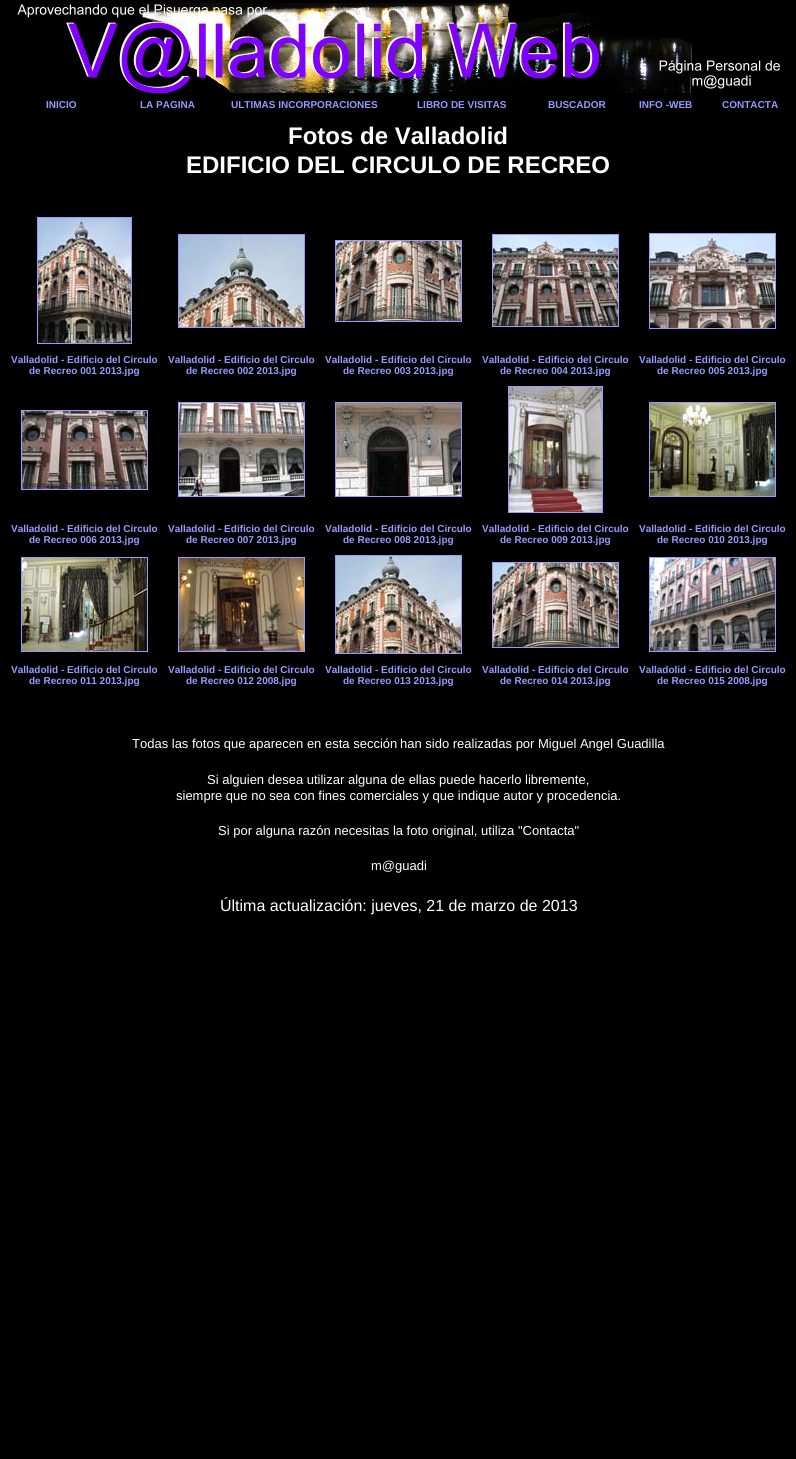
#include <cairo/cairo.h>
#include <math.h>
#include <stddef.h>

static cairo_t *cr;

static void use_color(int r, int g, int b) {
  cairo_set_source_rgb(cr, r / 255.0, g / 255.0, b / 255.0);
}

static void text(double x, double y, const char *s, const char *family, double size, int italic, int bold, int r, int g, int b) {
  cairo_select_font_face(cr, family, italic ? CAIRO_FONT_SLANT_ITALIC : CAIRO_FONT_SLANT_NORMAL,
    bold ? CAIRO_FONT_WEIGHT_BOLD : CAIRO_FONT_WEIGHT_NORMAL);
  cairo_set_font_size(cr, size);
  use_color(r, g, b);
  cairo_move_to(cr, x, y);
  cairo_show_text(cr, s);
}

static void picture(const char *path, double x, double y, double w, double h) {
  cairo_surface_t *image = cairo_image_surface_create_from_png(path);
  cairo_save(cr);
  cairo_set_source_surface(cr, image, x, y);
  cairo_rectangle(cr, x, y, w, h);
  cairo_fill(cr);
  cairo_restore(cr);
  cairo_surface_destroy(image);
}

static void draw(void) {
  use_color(0, 0, 0);
  cairo_paint(cr);
  picture("img_01.png", 17, 3, 763, 90);
  cairo_rectangle(cr, 37.5, 217.5, 94, 126);
  use_color(153, 153, 255);
  cairo_set_line_width(cr, 1);
  cairo_stroke(cr);
  picture("img_02.png", 38, 218, 93, 125);
  cairo_rectangle(cr, 178.5, 234.5, 126, 93);
  cairo_stroke(cr);
  picture("img_03.png", 179, 235, 125, 92);
  cairo_rectangle(cr, 335.5, 240.5, 126, 81);
  cairo_stroke(cr);
  picture("img_04.png", 336, 241, 125, 80);
  cairo_rectangle(cr, 492.5, 234.5, 126, 92);
  cairo_stroke(cr);
  picture("img_05.png", 493, 235, 125, 91);
  cairo_rectangle(cr, 649.5, 233.5, 126, 95);
  cairo_stroke(cr);
  picture("img_06.png", 650, 234, 125, 94);
  cairo_rectangle(cr, 21.5, 410.5, 126, 79);
  cairo_stroke(cr);
  picture("img_07.png", 22, 411, 125, 78);
  cairo_rectangle(cr, 178.5, 402.5, 126, 94);
  cairo_stroke(cr);
  picture("img_08.png", 179, 403, 125, 93);
  cairo_rectangle(cr, 335.5, 402.5, 126, 94);
  cairo_stroke(cr);
  picture("img_09.png", 336, 403, 125, 93);
  cairo_rectangle(cr, 508.5, 386.5, 94, 126);
  cairo_stroke(cr);
  picture("img_10.png", 509, 387, 93, 125);
  cairo_rectangle(cr, 649.5, 402.5, 126, 94);
  cairo_stroke(cr);
  picture("img_11.png", 650, 403, 125, 93);
  cairo_rectangle(cr, 21.5, 557.5, 126, 94);
  cairo_stroke(cr);
  picture("img_12.png", 22, 558, 125, 93);
  cairo_rectangle(cr, 178.5, 557.5, 126, 94);
  cairo_stroke(cr);
  picture("img_13.png", 179, 558, 125, 93);
  cairo_rectangle(cr, 335.5, 555.5, 126, 98);
  cairo_stroke(cr);
  picture("img_14.png", 336, 556, 125, 97);
  cairo_rectangle(cr, 492.5, 562.5, 126, 85);
  cairo_stroke(cr);
  picture("img_15.png", 493, 563, 125, 84);
  cairo_rectangle(cr, 649.5, 557.5, 126, 94);
  cairo_stroke(cr);
  picture("img_16.png", 650, 558, 125, 93);
  text(46, 108, "INICIO", "Liberation Sans", 10, 0, 1, 153, 153, 255);
  text(140, 108, "LA PAGINA", "Liberation Sans", 10, 0, 1, 153, 153, 255);
  text(231, 108, "ULTIMAS INCORPORACIONES", "Liberation Sans", 10, 0, 1, 153, 153, 255);
  text(417, 108, "LIBRO DE VISITAS", "Liberation Sans", 10, 0, 1, 153, 153, 255);
  text(548, 108, "BUSCADOR", "Liberation Sans", 10, 0, 1, 153, 153, 255);
  text(639, 108, "INFO -WEB", "Liberation Sans", 10, 0, 1, 153, 153, 255);
  text(722, 108, "CONTACTA", "Liberation Sans", 10, 0, 1, 153, 153, 255);
  text(288, 144, "Fotos de Valladolid", "Liberation Sans", 24, 0, 1, 255, 255, 255);
  text(186, 173, "EDIFICIO DEL CIRCULO DE RECREO", "Liberation Sans", 24, 0, 1, 255, 255, 255);
  text(11, 363, "Valladolid - Edificio del Circulo", "Liberation Sans", 10, 0, 1, 153, 153, 255);
  text(29, 374, "de Recreo 001 2013.jpg", "Liberation Sans", 10, 0, 1, 153, 153, 255);
  text(168, 363, "Valladolid - Edificio del Circulo", "Liberation Sans", 10, 0, 1, 153, 153, 255);
  text(186, 374, "de Recreo 002 2013.jpg", "Liberation Sans", 10, 0, 1, 153, 153, 255);
  text(325, 363, "Valladolid - Edificio del Circulo", "Liberation Sans", 10, 0, 1, 153, 153, 255);
  text(343, 374, "de Recreo 003 2013.jpg", "Liberation Sans", 10, 0, 1, 153, 153, 255);
  text(482, 363, "Valladolid - Edificio del Circulo", "Liberation Sans", 10, 0, 1, 153, 153, 255);
  text(500, 374, "de Recreo 004 2013.jpg", "Liberation Sans", 10, 0, 1, 153, 153, 255);
  text(639, 363, "Valladolid - Edificio del Circulo", "Liberation Sans", 10, 0, 1, 153, 153, 255);
  text(657, 374, "de Recreo 005 2013.jpg", "Liberation Sans", 10, 0, 1, 153, 153, 255);
  text(11, 532, "Valladolid - Edificio del Circulo", "Liberation Sans", 10, 0, 1, 153, 153, 255);
  text(29, 543, "de Recreo 006 2013.jpg", "Liberation Sans", 10, 0, 1, 153, 153, 255);
  text(168, 532, "Valladolid - Edificio del Circulo", "Liberation Sans", 10, 0, 1, 153, 153, 255);
  text(186, 543, "de Recreo 007 2013.jpg", "Liberation Sans", 10, 0, 1, 153, 153, 255);
  text(325, 532, "Valladolid - Edificio del Circulo", "Liberation Sans", 10, 0, 1, 153, 153, 255);
  text(343, 543, "de Recreo 008 2013.jpg", "Liberation Sans", 10, 0, 1, 153, 153, 255);
  text(482, 532, "Valladolid - Edificio del Circulo", "Liberation Sans", 10, 0, 1, 153, 153, 255);
  text(500, 543, "de Recreo 009 2013.jpg", "Liberation Sans", 10, 0, 1, 153, 153, 255);
  text(639, 532, "Valladolid - Edificio del Circulo", "Liberation Sans", 10, 0, 1, 153, 153, 255);
  text(657, 543, "de Recreo 010 2013.jpg", "Liberation Sans", 10, 0, 1, 153, 153, 255);
  text(11, 673, "Valladolid - Edificio del Circulo", "Liberation Sans", 10, 0, 1, 153, 153, 255);
  text(29, 684, "de Recreo 011 2013.jpg", "Liberation Sans", 10, 0, 1, 153, 153, 255);
  text(168, 673, "Valladolid - Edificio del Circulo", "Liberation Sans", 10, 0, 1, 153, 153, 255);
  text(186, 684, "de Recreo 012 2008.jpg", "Liberation Sans", 10, 0, 1, 153, 153, 255);
  text(325, 673, "Valladolid - Edificio del Circulo", "Liberation Sans", 10, 0, 1, 153, 153, 255);
  text(343, 684, "de Recreo 013 2013.jpg", "Liberation Sans", 10, 0, 1, 153, 153, 255);
  text(482, 673, "Valladolid - Edificio del Circulo", "Liberation Sans", 10, 0, 1, 153, 153, 255);
  text(500, 684, "de Recreo 014 2013.jpg", "Liberation Sans", 10, 0, 1, 153, 153, 255);
  text(639, 673, "Valladolid - Edificio del Circulo", "Liberation Sans", 10, 0, 1, 153, 153, 255);
  text(657, 684, "de Recreo 015 2008.jpg", "Liberation Sans", 10, 0, 1, 153, 153, 255);
  text(132, 748, "Todas las fotos que aparecen en esta sección", "Liberation Sans", 13, 0, 0, 255, 255, 255);
  text(400, 748, "han sido realizadas por Miguel Angel Guadilla", "Liberation Sans", 13, 0, 0, 255, 255, 255);
  text(207, 784, "Si alguien desea utilizar alguna de ellas puede hacerlo libremente,", "Liberation Sans", 13, 0, 0, 255, 255, 255);
  text(176, 800, "siempre que no sea con fines comerciales y que indique autor y procedencia.", "Liberation Sans", 13, 0, 0, 255, 255, 255);
  text(218, 835, "Si por alguna razón necesitas la foto original, utiliza \"Contacta\"", "Liberation Sans", 13, 0, 0, 255, 255, 255);
  text(371, 870, "m@guadi", "Liberation Sans", 13, 0, 0, 255, 255, 255);
  text(220, 911, "Última actualización: jueves, 21 de marzo de 2013", "Liberation Sans", 16, 0, 0, 255, 255, 255);
}

int main(void) {
  cairo_surface_t *surface = cairo_image_surface_create(CAIRO_FORMAT_RGB24, 796, 1459);
  cr = cairo_create(surface);
  cairo_font_options_t *options = cairo_font_options_create();
  cairo_font_options_set_hint_metrics(options, CAIRO_HINT_METRICS_OFF);
  cairo_font_options_set_hint_style(options, CAIRO_HINT_STYLE_NONE);
  cairo_set_font_options(cr, options);
  cairo_set_miter_limit(cr, 4);
  draw();
  cairo_surface_write_to_png(surface, "out.png");
  cairo_font_options_destroy(options);
  cairo_destroy(cr);
  cairo_surface_destroy(surface);
  return 0;
}
